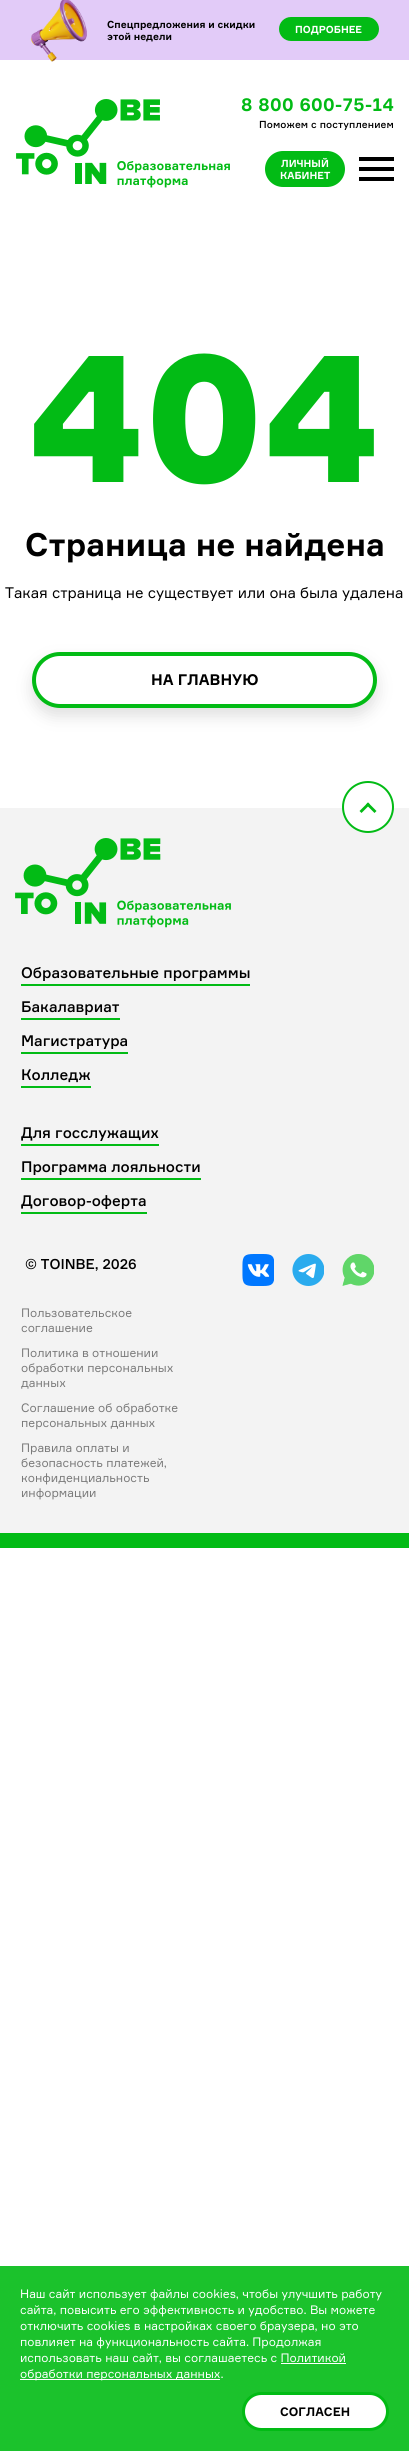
#include <cairo/cairo.h>
#include <math.h>
#include <stddef.h>

static cairo_t *cr;

static void use_color(int r, int g, int b) {
  cairo_set_source_rgb(cr, r / 255.0, g / 255.0, b / 255.0);
}

static void text(double x, double y, const char *s, const char *family, double size, int italic, int bold, int r, int g, int b) {
  cairo_select_font_face(cr, family, italic ? CAIRO_FONT_SLANT_ITALIC : CAIRO_FONT_SLANT_NORMAL,
    bold ? CAIRO_FONT_WEIGHT_BOLD : CAIRO_FONT_WEIGHT_NORMAL);
  cairo_set_font_size(cr, size);
  use_color(r, g, b);
  cairo_move_to(cr, x, y);
  cairo_show_text(cr, s);
}

static void spaced_text(double x, double y, const char *s, double letter, double word) {
  cairo_move_to(cr, x, y);
  while (*s) {
    char ch[5] = {0};
    int n = 0;
    do ch[n++] = *s++; while ((*s & 0xC0) == 0x80);
    cairo_show_text(cr, ch);
    cairo_rel_move_to(cr, letter + word * (*ch == ' '), 0);
  }
}

static void box(double x, double y, double w, double h, int r, int g, int b) {
  use_color(r, g, b);
  cairo_rectangle(cr, x, y, w, h);
  cairo_fill(cr);
}

static void round_rect(double x, double y, double w, double h, double r) {
  cairo_new_sub_path(cr);
  cairo_arc(cr, x + w - r, y + h - r, r, 0, M_PI / 2);
  cairo_arc(cr, x + r, y + h - r, r, M_PI / 2, M_PI);
  cairo_arc(cr, x + r, y + r, r, M_PI, 1.5 * M_PI);
  cairo_arc(cr, x + w - r, y + r, r, 1.5 * M_PI, 2 * M_PI);
  cairo_close_path(cr);
}

static void shadow(double x, double y, double w, double h, double r, double blur, double alpha) {
  cairo_push_group_with_content(cr, CAIRO_CONTENT_ALPHA);
  cairo_set_operator(cr, CAIRO_OPERATOR_SOURCE);
  for (int i = 15; i >= -15 && fmin(w, h) + blur * i / 3 > 0; i -= 2) {
    double e = blur * i / 6;
    cairo_set_source_rgba(cr, 0, 0, 0, alpha * erfc((i - 1) / 8.5) / 2);
    round_rect(x - e, y - e, w + 2 * e, h + 2 * e, fmax(0, fmin(r + e + blur * .6, fmin(w, h) / 2 + e)));
    cairo_fill(cr);
  }
  cairo_pattern_t *soft = cairo_pop_group(cr);
  cairo_mask(cr, soft);
  cairo_pattern_destroy(soft);
}

static void picture(const char *path, double x, double y, double w, double h) {
  cairo_surface_t *image = cairo_image_surface_create_from_png(path);
  cairo_save(cr);
  cairo_set_source_surface(cr, image, x, y);
  cairo_rectangle(cr, x, y, w, h);
  cairo_fill(cr);
  cairo_restore(cr);
  cairo_surface_destroy(image);
}

static void draw(void) {
  use_color(255, 255, 255);
  cairo_paint(cr);
  box(0, 0, 409, 60, 226, 203, 248);
  picture("img_01.png", 30, 0, 57, 62);
  use_color(2, 187, 21);
  round_rect(279, 17, 100, 24, 12);
  cairo_fill(cr);
  picture("img_02.png", 16, 99, 214, 89);
  round_rect(265, 151, 80, 36, 18);
  cairo_fill(cr);
  box(359, 157, 35, 4, 0, 0, 0);
  box(359, 167, 35, 4, 0, 0, 0);
  box(359, 177, 35, 4, 0, 0, 0);
  use_color(224, 224, 224);
  shadow(32, 660, 345, 56, 28, 7.5, 1);
  use_color(255, 255, 255);
  round_rect(34, 654, 341, 52, 26);
  cairo_fill_preserve(cr);
  use_color(2, 187, 21);
  cairo_set_line_width(cr, 4);
  cairo_stroke(cr);
  box(0, 808, 409, 725, 243, 243, 243);
  box(0, 1533, 409, 15, 2, 187, 21);
  use_color(255, 255, 255);
  cairo_arc(cr, 368, 807, 25, 0, 2 * M_PI);
  cairo_fill_preserve(cr);
  use_color(2, 187, 21);
  cairo_set_line_width(cr, 2);
  cairo_stroke(cr);
  cairo_new_path(cr);
  cairo_move_to(cr, 368, 802.5);
  cairo_line_to(cr, 376.5, 811);
  cairo_line_to(cr, 374.5, 813);
  cairo_line_to(cr, 366, 804.5);
  cairo_close_path(cr);
  cairo_fill(cr);
  cairo_new_path(cr);
  cairo_move_to(cr, 368, 802.5);
  cairo_line_to(cr, 370, 804.5);
  cairo_line_to(cr, 361.5, 813);
  cairo_line_to(cr, 359.5, 811);
  cairo_close_path(cr);
  cairo_fill(cr);
  picture("img_03.png", 15, 838, 216, 90);
  box(21, 984, 229, 2, 2, 187, 21);
  box(21, 1018, 99, 2, 2, 187, 21);
  box(21, 1052, 107, 2, 2, 187, 21);
  box(21, 1086, 70, 2, 2, 187, 21);
  box(21, 1144, 138, 2, 2, 187, 21);
  box(21, 1178, 180, 2, 2, 187, 21);
  box(21, 1212, 126, 2, 2, 187, 21);
  picture("img_04.png", 242, 1254, 32, 32);
  picture("img_05.png", 292, 1254, 32, 32);
  picture("img_06.png", 342, 1254, 32, 32);
  box(0, 2266, 409, 185, 27, 194, 44);
  box(281, 2363, 65, 1, 255, 255, 255);
  box(20, 2379, 200, 1, 255, 255, 255);
  round_rect(243.5, 2393.5, 144, 36, 18);
  cairo_fill_preserve(cr);
  use_color(2, 187, 21);
  cairo_set_line_width(cr, 3);
  cairo_stroke(cr);
  text(107, 28, "Спецпредложения и скидки", "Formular", 10, 0, 1, 0, 0, 0);
  text(107, 40, "этой недели", "Formular", 10, 0, 1, 0, 0, 0);
  text(295, 33, "ПОДРОБНЕЕ", "Formular", 10, 0, 1, 255, 255, 255);
  cairo_set_font_size(cr, 18);
  use_color(2, 187, 21);
  spaced_text(241, 111, "8 800 600-75-14", 0.4, 0);
  cairo_select_font_face(cr, "Formular Medium", CAIRO_FONT_SLANT_NORMAL, CAIRO_FONT_WEIGHT_NORMAL);
  cairo_set_font_size(cr, 10);
  use_color(0, 0, 0);
  spaced_text(259, 128, "Поможем с поступлением", 0.1, 0);
  text(281, 167, "ЛИЧНЫЙ", "Formular", 10, 0, 1, 255, 255, 255);
  text(280, 179, "КАБИНЕТ", "Formular", 10, 0, 1, 255, 255, 255);
  text(28, 482, "404", "Formular Black", 180, 0, 0, 2, 187, 21);
  text(25, 556, "Страница не найдена", "Formular", 32, 0, 1, 0, 0, 0);
  text(5, 598, "Такая страница не существует или она была удалена", "Formular", 15, 0, 0, 0, 0, 0);
  text(151, 685, "НА ГЛАВНУЮ", "Formular", 15, 0, 1, 0, 0, 0);
  text(21, 978, "Образовательные программы", "Formular Medium", 15, 0, 0, 0, 0, 0);
  text(21, 1012, "Бакалавриат", "Formular Medium", 15, 0, 0, 0, 0, 0);
  text(21, 1046, "Магистратура", "Formular Medium", 15, 0, 0, 0, 0, 0);
  text(21, 1080, "Колледж", "Formular Medium", 15, 0, 0, 0, 0, 0);
  text(21, 1138, "Для госслужащих", "Formular Medium", 15, 0, 0, 0, 0, 0);
  text(21, 1172, "Программа лояльности", "Formular Medium", 15, 0, 0, 0, 0, 0);
  text(21, 1206, "Договор-оферта", "Formular Medium", 15, 0, 0, 0, 0, 0);
  text(25, 1269, "© TOINBE, 2026", "Formular Medium", 14, 0, 0, 0, 0, 0);
  text(21, 1317, "Пользовательское", "Formular", 12, 0, 0, 122, 122, 122);
  text(21, 1332, "соглашение", "Formular", 12, 0, 0, 122, 122, 122);
  text(21, 1357, "Политика в отношении", "Formular", 12, 0, 0, 122, 122, 122);
  text(21, 1372, "обработки персональных", "Formular", 12, 0, 0, 122, 122, 122);
  text(21, 1387, "данных", "Formular", 12, 0, 0, 122, 122, 122);
  text(21, 1412, "Соглашение об обработке", "Formular", 12, 0, 0, 122, 122, 122);
  text(21, 1427, "персональных данных", "Formular", 12, 0, 0, 122, 122, 122);
  text(21, 1452, "Правила оплаты и", "Formular", 12, 0, 0, 122, 122, 122);
  text(21, 1467, "безопасность платежей,", "Formular", 12, 0, 0, 122, 122, 122);
  text(21, 1482, "конфиденциальность", "Formular", 12, 0, 0, 122, 122, 122);
  text(21, 1497, "информации", "Formular", 12, 0, 0, 122, 122, 122);
  text(20, 2298, "Наш сайт использует файлы cookies, чтобы улучшить работу", "Formular", 12, 0, 0, 255, 255, 255);
  text(20, 2314, "сайта, повысить его эффективность и удобство. Вы можете", "Formular", 12, 0, 0, 255, 255, 255);
  text(20, 2330, "отключить cookies в настройках своего браузера, но это", "Formular", 12, 0, 0, 255, 255, 255);
  text(20, 2346, "повлияет на функциональность сайта. Продолжая", "Formular", 12, 0, 0, 255, 255, 255);
  text(20, 2362, "использовать наш сайт, вы соглашаетесь с Политикой", "Formular", 12, 0, 0, 255, 255, 255);
  text(20, 2378, "обработки персональных данных.", "Formular", 12, 0, 0, 255, 255, 255);
  text(280, 2416, "СОГЛАСЕН", "Formular", 12, 0, 1, 0, 0, 0);
}

int main(void) {
  cairo_surface_t *surface = cairo_image_surface_create(CAIRO_FORMAT_RGB24, 409, 2451);
  cr = cairo_create(surface);
  cairo_font_options_t *options = cairo_font_options_create();
  cairo_font_options_set_hint_metrics(options, CAIRO_HINT_METRICS_OFF);
  cairo_font_options_set_hint_style(options, CAIRO_HINT_STYLE_NONE);
  cairo_set_font_options(cr, options);
  cairo_set_miter_limit(cr, 4);
  draw();
  cairo_surface_write_to_png(surface, "out.png");
  cairo_font_options_destroy(options);
  cairo_destroy(cr);
  cairo_surface_destroy(surface);
  return 0;
}
